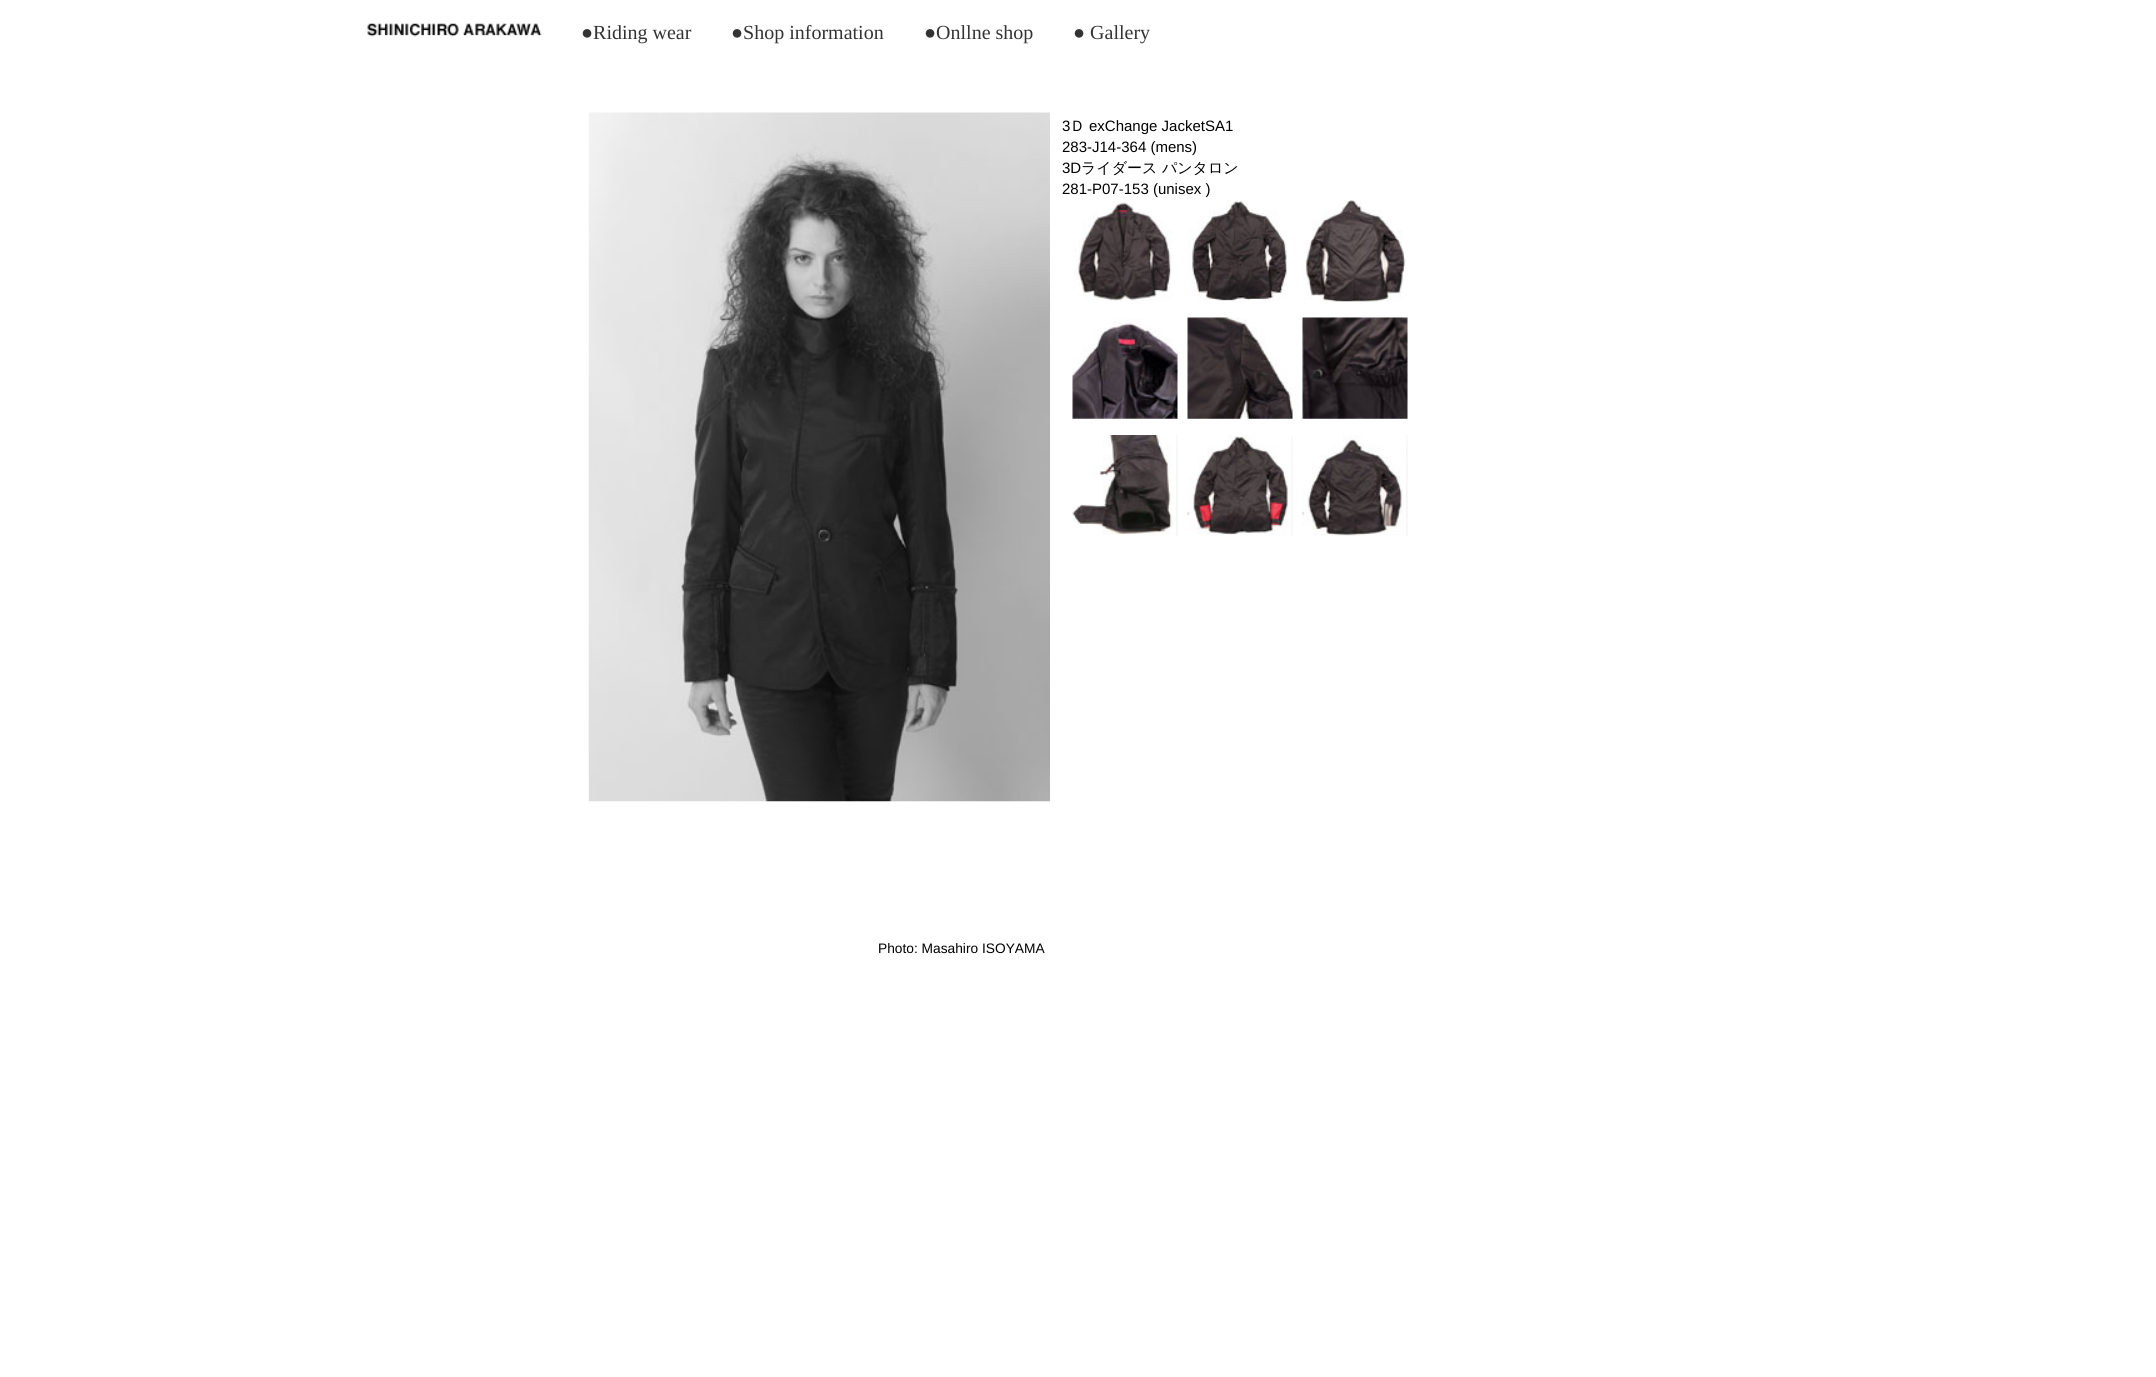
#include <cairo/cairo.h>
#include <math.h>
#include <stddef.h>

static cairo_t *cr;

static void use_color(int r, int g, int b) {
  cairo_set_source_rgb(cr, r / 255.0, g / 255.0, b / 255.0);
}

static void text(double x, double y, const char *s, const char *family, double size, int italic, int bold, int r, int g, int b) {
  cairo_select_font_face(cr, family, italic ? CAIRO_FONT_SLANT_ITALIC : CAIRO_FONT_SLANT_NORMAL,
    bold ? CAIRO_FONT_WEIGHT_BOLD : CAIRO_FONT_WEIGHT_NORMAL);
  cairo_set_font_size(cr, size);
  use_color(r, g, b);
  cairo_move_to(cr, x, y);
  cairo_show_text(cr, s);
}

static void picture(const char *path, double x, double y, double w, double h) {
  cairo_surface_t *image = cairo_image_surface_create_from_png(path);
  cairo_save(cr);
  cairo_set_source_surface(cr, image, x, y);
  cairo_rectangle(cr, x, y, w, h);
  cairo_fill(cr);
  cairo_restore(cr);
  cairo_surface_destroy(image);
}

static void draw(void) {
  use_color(255, 255, 255);
  cairo_paint(cr);
  picture("img_01.png", 367, 23, 175, 14);
  picture("img_02.png", 1074, 200, 99, 101);
  picture("img_03.png", 1187, 200, 101, 101);
  picture("img_04.png", 1303, 200, 103, 102);
  picture("img_05.png", 1072, 318, 106, 101);
  picture("img_06.png", 1187, 317, 106, 102);
  picture("img_07.png", 1302, 317, 106, 102);
  picture("img_08.png", 1072, 435, 106, 101);
  picture("img_09.png", 1187, 435, 106, 101);
  picture("img_10.png", 1302, 435, 106, 101);
  picture("img_11.png", 588, 112, 462, 690);
  text(581, 39, "●Riding wear", "Liberation Serif", 20, 0, 0, 51, 51, 51);
  text(731, 39, "●Shop information", "Liberation Serif", 20, 0, 0, 51, 51, 51);
  text(924, 39, "●Onllne shop", "Liberation Serif", 20, 0, 0, 51, 51, 51);
  text(1073, 39, "● Gallery", "Liberation Serif", 20, 0, 0, 51, 51, 51);
  text(1062, 131, "3", "Liberation Sans", 15, 0, 0, 0, 0, 0);
  text(1070, 131, "Ｄ", "WenQuanYi Zen Hei Medium", 15, 0, 0, 0, 0, 0);
  text(1089, 131, "exChange JacketSA1", "Liberation Sans", 15, 0, 0, 0, 0, 0);
  text(1062, 152, "283-J14-364 (mens)", "Liberation Sans", 15, 0, 0, 0, 0, 0);
  text(1062, 173, "3D", "Liberation Sans", 15, 0, 0, 0, 0, 0);
  text(1081, 173, "ライダース パンタロン", "WenQuanYi Zen Hei Medium", 15, 0, 0, 0, 0, 0);
  text(1062, 194, "281-P07-153 (unisex )", "Liberation Sans", 15, 0, 0, 0, 0, 0);
  text(878, 953, "Photo: Masahiro ISOYAMA", "Liberation Sans", 13.75, 0, 0, 0, 0, 0);
}

int main(void) {
  cairo_surface_t *surface = cairo_image_surface_create(CAIRO_FORMAT_RGB24, 2156, 1377);
  cr = cairo_create(surface);
  cairo_font_options_t *options = cairo_font_options_create();
  cairo_font_options_set_hint_metrics(options, CAIRO_HINT_METRICS_OFF);
  cairo_font_options_set_hint_style(options, CAIRO_HINT_STYLE_NONE);
  cairo_set_font_options(cr, options);
  cairo_set_miter_limit(cr, 4);
  draw();
  cairo_surface_write_to_png(surface, "out.png");
  cairo_font_options_destroy(options);
  cairo_destroy(cr);
  cairo_surface_destroy(surface);
  return 0;
}
